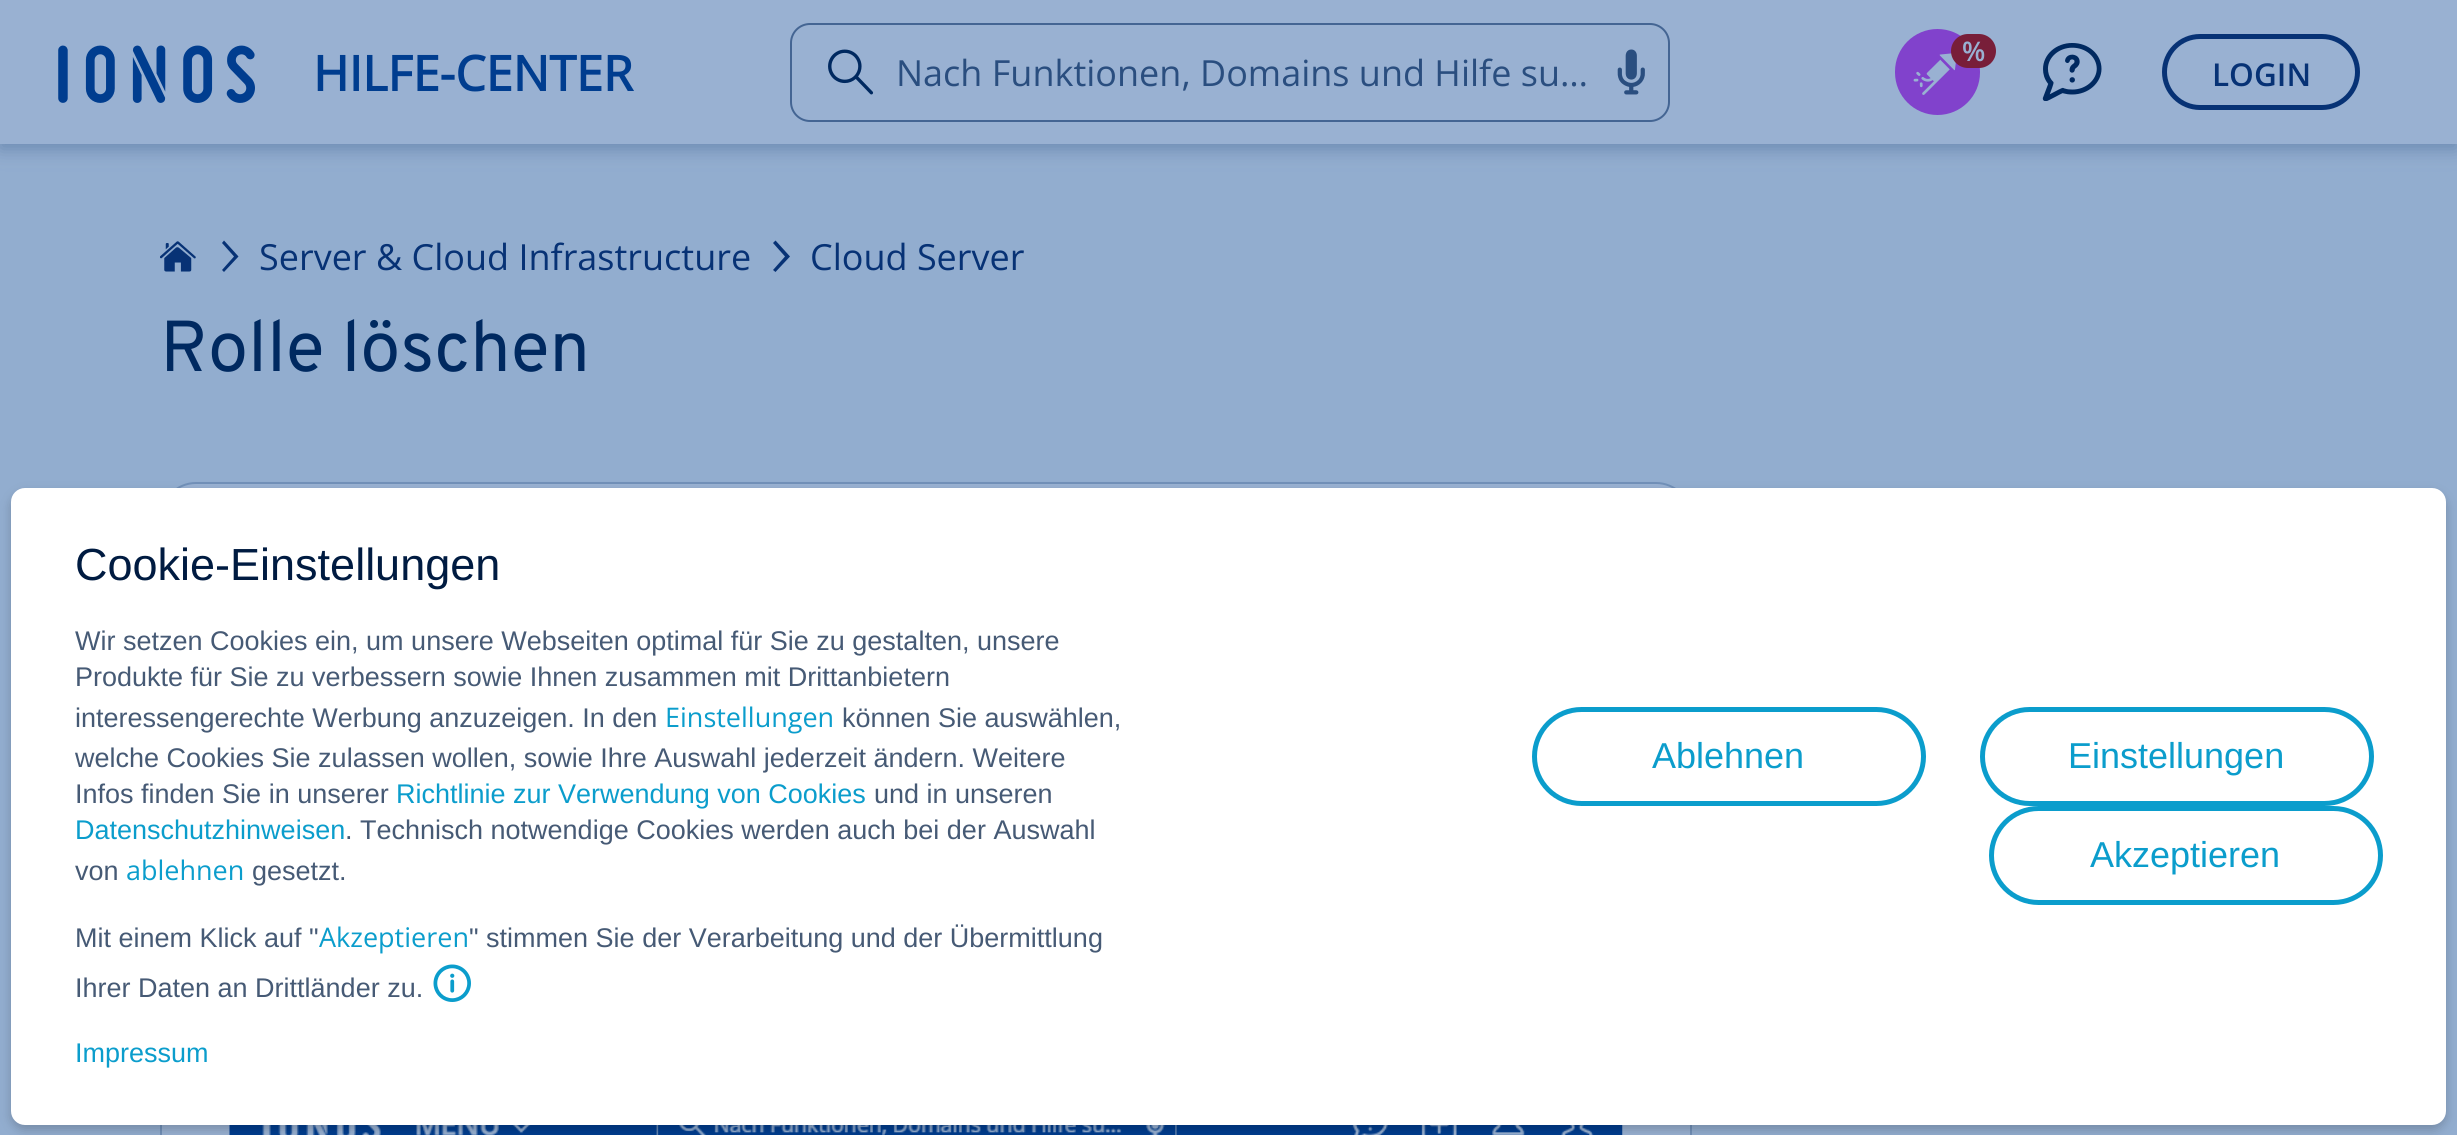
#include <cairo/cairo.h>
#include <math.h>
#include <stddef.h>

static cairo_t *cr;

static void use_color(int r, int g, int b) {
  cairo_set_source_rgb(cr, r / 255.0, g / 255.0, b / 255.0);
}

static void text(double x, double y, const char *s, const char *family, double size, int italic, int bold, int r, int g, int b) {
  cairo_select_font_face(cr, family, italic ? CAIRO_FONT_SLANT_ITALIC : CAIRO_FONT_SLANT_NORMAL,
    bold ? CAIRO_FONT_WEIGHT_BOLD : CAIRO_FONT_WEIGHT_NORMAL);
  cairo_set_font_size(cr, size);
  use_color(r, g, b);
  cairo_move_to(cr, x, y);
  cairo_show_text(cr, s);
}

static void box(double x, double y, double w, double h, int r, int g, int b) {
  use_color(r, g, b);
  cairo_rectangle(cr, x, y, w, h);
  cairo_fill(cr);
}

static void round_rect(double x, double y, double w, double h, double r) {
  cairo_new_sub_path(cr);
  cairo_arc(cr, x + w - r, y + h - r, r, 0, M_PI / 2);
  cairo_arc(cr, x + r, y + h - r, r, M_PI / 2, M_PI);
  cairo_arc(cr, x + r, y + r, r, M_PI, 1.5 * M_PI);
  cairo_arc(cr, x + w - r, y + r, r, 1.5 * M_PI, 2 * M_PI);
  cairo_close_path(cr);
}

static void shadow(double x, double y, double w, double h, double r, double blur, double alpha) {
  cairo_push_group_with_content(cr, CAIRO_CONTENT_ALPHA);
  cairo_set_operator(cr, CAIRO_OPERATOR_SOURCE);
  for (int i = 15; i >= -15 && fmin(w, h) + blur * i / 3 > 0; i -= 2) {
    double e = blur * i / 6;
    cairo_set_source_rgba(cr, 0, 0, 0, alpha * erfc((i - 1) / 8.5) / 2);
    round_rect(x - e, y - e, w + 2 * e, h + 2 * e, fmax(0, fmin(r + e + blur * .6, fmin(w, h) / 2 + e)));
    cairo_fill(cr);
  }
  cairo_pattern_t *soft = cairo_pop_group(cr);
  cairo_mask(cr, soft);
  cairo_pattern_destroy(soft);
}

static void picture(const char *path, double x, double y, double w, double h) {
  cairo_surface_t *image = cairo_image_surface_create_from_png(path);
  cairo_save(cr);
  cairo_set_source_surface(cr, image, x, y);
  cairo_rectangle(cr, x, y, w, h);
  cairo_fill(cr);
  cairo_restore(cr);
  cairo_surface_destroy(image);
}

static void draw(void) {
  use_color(146, 173, 207);
  cairo_paint(cr);
  use_color(68, 101, 147);
  shadow(0, 5, 2457, 144, 0, 9, 0.5);
  box(0, 0, 2457, 144, 153, 177, 210);
  picture("img_01.png", 58, 45, 197, 58);
  round_rect(791, 24, 878, 97, 19);
  use_color(68, 101, 147);
  cairo_stroke(cr);
  picture("img_02.png", 828, 49, 46, 46);
  picture("img_03.png", 1617, 49, 28, 46);
  use_color(129, 66, 204);
  round_rect(1895, 29, 85, 86, 42.5);
  cairo_fill(cr);
  picture("img_04.png", 1913, 53, 43, 42);
  use_color(120, 30, 57);
  round_rect(1951, 34, 45, 34, 17);
  cairo_fill(cr);
  picture("img_05.png", 2042, 43, 60, 58);
  round_rect(2164.5, 36.5, 193, 71, 35.5);
  use_color(7, 50, 117);
  cairo_set_line_width(cr, 5);
  cairo_stroke(cr);
  picture("img_06.png", 160, 241, 36, 31);
  cairo_new_path(cr);
  cairo_move_to(cr, 238.5, 256.5);
  cairo_line_to(cr, 224, 240.5);
  cairo_line_to(cr, 222, 243);
  cairo_line_to(cr, 234, 256.5);
  cairo_line_to(cr, 222, 270);
  cairo_line_to(cr, 224, 272);
  cairo_close_path(cr);
  cairo_fill(cr);
  cairo_new_path(cr);
  cairo_move_to(cr, 790, 256.5);
  cairo_line_to(cr, 775.5, 240.5);
  cairo_line_to(cr, 773, 243);
  cairo_line_to(cr, 785, 256.5);
  cairo_line_to(cr, 773, 270);
  cairo_line_to(cr, 775.5, 272);
  cairo_close_path(cr);
  cairo_fill(cr);
  use_color(153, 177, 210);
  round_rect(161, 483, 1530, 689, 35);
  cairo_fill_preserve(cr);
  use_color(113, 144, 184);
  cairo_set_line_width(cr, 2);
  cairo_stroke(cr);
  picture("img_07.png", 229, 1125, 1394, 10);
  use_color(0, 0, 0);
  shadow(11, 493, 2435, 637, 14, 5.5, 0.2);
  use_color(255, 255, 255);
  round_rect(11, 488, 2435, 637, 14);
  cairo_fill(cr);
  picture("img_08.png", 433, 964, 38, 38);
  round_rect(1534.5, 709.5, 389, 94, 47);
  use_color(11, 157, 204);
  cairo_set_line_width(cr, 5);
  cairo_stroke(cr);
  round_rect(1982.5, 709.5, 389, 94, 47);
  cairo_stroke(cr);
  round_rect(1991.5, 808.5, 389, 94, 47);
  cairo_stroke(cr);
  text(313, 91, "HILFE-CENTER", "Open Sans", 48.5, 0, 1, 0, 61, 143);
  text(896, 86, "Nach Funktionen, Domains und Hilfe su…", "Open Sans", 36, 0, 0, 42, 78, 127);
  text(1962, 61, "%", "Open Sans SemiBold", 27, 0, 0, 153, 177, 210);
  text(2212, 86, "LOGIN", "Open Sans SemiBold", 31.5, 0, 0, 7, 50, 117);
  text(259, 270, "Server & Cloud Infrastructure", "Open Sans", 36, 0, 0, 7, 50, 117);
  text(810, 270, "Cloud Server", "Open Sans", 36, 0, 0, 7, 50, 117);
  text(160, 371, "Rolle löschen", "Overpass", 72, 0, 0, 0, 41, 96);
  text(75, 580, "Cookie-Einstellungen", "Liberation Sans", 45, 0, 0, 0, 27, 65);
  text(75, 650, "Wir setzen Cookies ein, um unsere Webseiten optimal für Sie zu gestalten, unsere", "Liberation Sans", 27, 0, 0, 70, 90, 117);
  text(75, 686, "Produkte für Sie zu verbessern sowie Ihnen zusammen mit Drittanbietern", "Liberation Sans", 27, 0, 0, 70, 90, 117);
  text(75, 727, "interessengerechte Werbung anzuzeigen. In den", "Liberation Sans", 27, 0, 0, 70, 90, 117);
  text(665, 727, "Einstellungen", "Open Sans", 27, 0, 0, 11, 157, 204);
  text(842, 727, "können Sie auswählen,", "Liberation Sans", 27, 0, 0, 70, 90, 117);
  text(75, 767, "welche Cookies Sie zulassen wollen, sowie Ihre Auswahl jederzeit ändern. Weitere", "Liberation Sans", 27, 0, 0, 70, 90, 117);
  text(75, 803, "Infos finden Sie in unserer", "Liberation Sans", 27, 0, 0, 70, 90, 117);
  text(396, 803, "Richtlinie zur Verwendung von Cookies", "Liberation Sans", 27, 0, 0, 11, 157, 204);
  text(874, 803, "und in unseren", "Liberation Sans", 27, 0, 0, 70, 90, 117);
  text(75, 839, "Datenschutzhinweisen", "Liberation Sans", 27, 0, 0, 11, 157, 204);
  text(345, 839, ". Technisch notwendige Cookies werden auch bei der Auswahl", "Liberation Sans", 27, 0, 0, 70, 90, 117);
  text(75, 880, "von", "Liberation Sans", 27, 0, 0, 70, 90, 117);
  text(126, 880, "ablehnen", "Open Sans", 27, 0, 0, 11, 157, 204);
  text(252, 880, "gesetzt.", "Liberation Sans", 27, 0, 0, 70, 90, 117);
  text(75, 947, "Mit einem Klick auf \"", "Liberation Sans", 27, 0, 0, 70, 90, 117);
  text(319, 947, "Akzeptieren", "Open Sans", 27, 0, 0, 11, 157, 204);
  text(469, 947, "\" stimmen Sie der Verarbeitung und der Übermittlung", "Liberation Sans", 27, 0, 0, 70, 90, 117);
  text(75, 997, "Ihrer Daten an Drittländer zu.", "Liberation Sans", 27, 0, 0, 70, 90, 117);
  text(75, 1062, "Impressum", "Liberation Sans", 27, 0, 0, 11, 157, 204);
  text(1652, 768, "Ablehnen", "Liberation Sans", 36, 0, 0, 11, 157, 204);
  text(2068, 768, "Einstellungen", "Liberation Sans", 36, 0, 0, 11, 157, 204);
  text(2090, 867, "Akzeptieren", "Liberation Sans", 36, 0, 0, 11, 157, 204);
}

int main(void) {
  cairo_surface_t *surface = cairo_image_surface_create(CAIRO_FORMAT_RGB24, 2457, 1135);
  cr = cairo_create(surface);
  cairo_font_options_t *options = cairo_font_options_create();
  cairo_font_options_set_hint_metrics(options, CAIRO_HINT_METRICS_OFF);
  cairo_font_options_set_hint_style(options, CAIRO_HINT_STYLE_NONE);
  cairo_set_font_options(cr, options);
  cairo_set_miter_limit(cr, 4);
  draw();
  cairo_surface_write_to_png(surface, "out.png");
  cairo_font_options_destroy(options);
  cairo_destroy(cr);
  cairo_surface_destroy(surface);
  return 0;
}
